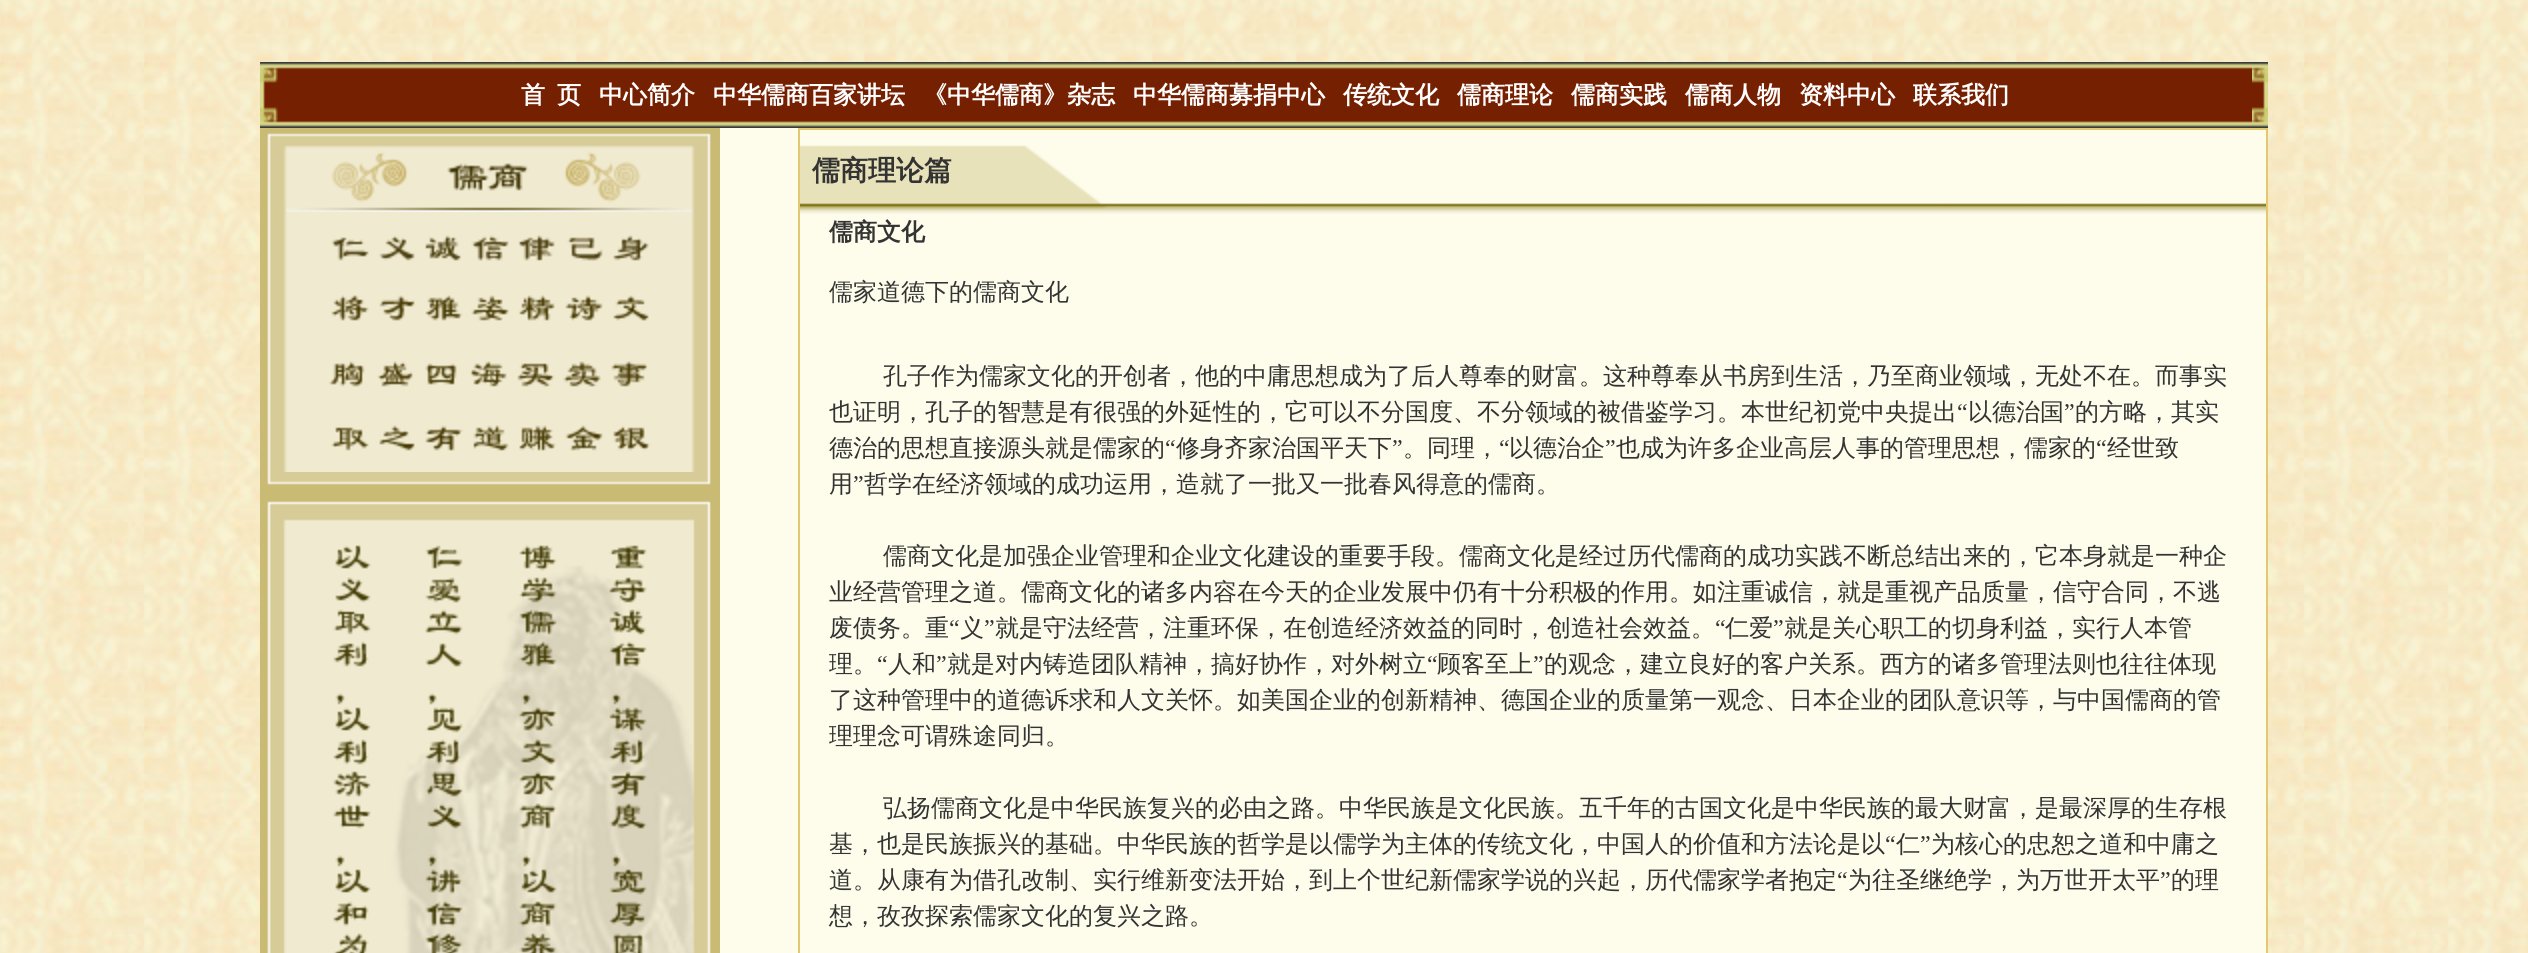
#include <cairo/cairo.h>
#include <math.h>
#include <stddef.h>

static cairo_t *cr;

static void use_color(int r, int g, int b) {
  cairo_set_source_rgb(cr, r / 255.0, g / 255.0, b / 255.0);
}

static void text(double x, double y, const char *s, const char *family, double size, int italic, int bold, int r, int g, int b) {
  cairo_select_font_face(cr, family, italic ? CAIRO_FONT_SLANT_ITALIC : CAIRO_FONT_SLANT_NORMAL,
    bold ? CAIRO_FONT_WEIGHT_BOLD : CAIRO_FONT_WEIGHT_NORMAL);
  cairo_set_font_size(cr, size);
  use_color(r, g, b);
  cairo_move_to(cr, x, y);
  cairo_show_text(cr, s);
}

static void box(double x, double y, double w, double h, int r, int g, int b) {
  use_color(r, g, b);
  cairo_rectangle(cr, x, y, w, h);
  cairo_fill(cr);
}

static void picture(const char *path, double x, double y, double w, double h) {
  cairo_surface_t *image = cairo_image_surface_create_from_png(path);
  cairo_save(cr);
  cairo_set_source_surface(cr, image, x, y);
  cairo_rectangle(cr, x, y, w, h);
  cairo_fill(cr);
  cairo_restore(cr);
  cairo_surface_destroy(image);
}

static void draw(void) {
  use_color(255, 255, 255);
  cairo_paint(cr);
  picture("img_01.png", 0, 0, 2528, 953);
  picture("img_02.png", 260, 62, 18, 66);
  picture("img_03.png", 278, 62, 1974, 66);
  picture("img_04.png", 2252, 62, 16, 66);
  box(720, 128, 1546, 825, 254, 252, 235);
  picture("img_05.png", 260, 128, 460, 84);
  picture("img_06.png", 260, 212, 460, 260);
  picture("img_07.png", 260, 472, 460, 22);
  picture("img_08.png", 260, 494, 460, 188);
  picture("img_09.png", 260, 682, 460, 162);
  picture("img_10.png", 260, 844, 460, 109);
  cairo_rectangle(cr, 799, 129, 1468, 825);
  use_color(226, 201, 112);
  cairo_stroke(cr);
  picture("img_11.png", 800, 145, 1466, 69);
  text(521, 103, "首", "WenQuanYi Zen Hei", 24, 0, 1, 255, 255, 255);
  text(557, 103, "页", "WenQuanYi Zen Hei", 24, 0, 1, 255, 255, 255);
  text(599, 103, "中心简介", "WenQuanYi Zen Hei", 24, 0, 1, 255, 255, 255);
  text(713, 103, "中华儒商百家讲坛", "WenQuanYi Zen Hei", 24, 0, 1, 255, 255, 255);
  text(923, 103, "《中华儒商》杂志", "WenQuanYi Zen Hei", 24, 0, 1, 255, 255, 255);
  text(1133, 103, "中华儒商募捐中心", "WenQuanYi Zen Hei", 24, 0, 1, 255, 255, 255);
  text(1343, 103, "传统文化", "WenQuanYi Zen Hei", 24, 0, 1, 255, 255, 255);
  text(1457, 103, "儒商理论", "WenQuanYi Zen Hei", 24, 0, 1, 255, 255, 255);
  text(1571, 103, "儒商实践", "WenQuanYi Zen Hei", 24, 0, 1, 255, 255, 255);
  text(1685, 103, "儒商人物", "WenQuanYi Zen Hei", 24, 0, 1, 255, 255, 255);
  text(1799, 103, "资料中心", "WenQuanYi Zen Hei", 24, 0, 1, 255, 255, 255);
  text(1913, 103, "联系我们", "WenQuanYi Zen Hei", 24, 0, 1, 255, 255, 255);
  text(812, 180, "儒商理论篇", "WenQuanYi Zen Hei", 28, 0, 1, 51, 51, 51);
  text(829, 240, "儒商文化", "WenQuanYi Zen Hei", 24, 0, 1, 51, 51, 51);
  text(829, 300, "儒家道德下的儒商文化", "WenQuanYi Zen Hei Medium", 24, 0, 0, 51, 51, 51);
  text(883, 384, "孔子作为儒家文化的开创者，他的中庸思想成为了后人尊奉的财富。这种尊奉从书房到生活，乃至商业领域，无处不在。而事实", "WenQuanYi Zen Hei Medium", 24, 0, 0, 51, 51, 51);
  text(829, 420, "也证明，孔子的智慧是有很强的外延性的，它可以不分国度、不分领域的被借鉴学习。本世纪初党中央提出", "WenQuanYi Zen Hei Medium", 24, 0, 0, 51, 51, 51);
  text(1957, 420, "“", "Liberation Serif", 24, 0, 0, 51, 51, 51);
  text(1968, 420, "以德治国", "WenQuanYi Zen Hei Medium", 24, 0, 0, 51, 51, 51);
  text(2064, 420, "”", "Liberation Serif", 24, 0, 0, 51, 51, 51);
  text(2075, 420, "的方略，其实", "WenQuanYi Zen Hei Medium", 24, 0, 0, 51, 51, 51);
  text(829, 456, "德治的思想直接源头就是儒家的", "WenQuanYi Zen Hei Medium", 24, 0, 0, 51, 51, 51);
  text(1165, 456, "“", "Liberation Serif", 24, 0, 0, 51, 51, 51);
  text(1176, 456, "修身齐家治国平天下", "WenQuanYi Zen Hei Medium", 24, 0, 0, 51, 51, 51);
  text(1392, 456, "”", "Liberation Serif", 24, 0, 0, 51, 51, 51);
  text(1403, 456, "。同理，", "WenQuanYi Zen Hei Medium", 24, 0, 0, 51, 51, 51);
  text(1499, 456, "“", "Liberation Serif", 24, 0, 0, 51, 51, 51);
  text(1509, 456, "以德治企", "WenQuanYi Zen Hei Medium", 24, 0, 0, 51, 51, 51);
  text(1605, 456, "”", "Liberation Serif", 24, 0, 0, 51, 51, 51);
  text(1616, 456, "也成为许多企业高层人事的管理思想，儒家的", "WenQuanYi Zen Hei Medium", 24, 0, 0, 51, 51, 51);
  text(2096, 456, "“", "Liberation Serif", 24, 0, 0, 51, 51, 51);
  text(2107, 456, "经世致", "WenQuanYi Zen Hei Medium", 24, 0, 0, 51, 51, 51);
  text(829, 492, "用", "WenQuanYi Zen Hei Medium", 24, 0, 0, 51, 51, 51);
  text(853, 492, "”", "Liberation Serif", 24, 0, 0, 51, 51, 51);
  text(864, 492, "哲学在经济领域的成功运用，造就了一批又一批春风得意的儒商。", "WenQuanYi Zen Hei Medium", 24, 0, 0, 51, 51, 51);
  text(883, 564, "儒商文化是加强企业管理和企业文化建设的重要手段。儒商文化是经过历代儒商的成功实践不断总结出来的，它本身就是一种企", "WenQuanYi Zen Hei Medium", 24, 0, 0, 51, 51, 51);
  text(829, 600, "业经营管理之道。儒商文化的诸多内容在今天的企业发展中仍有十分积极的作用。如注重诚信，就是重视产品质量，信守合同，不逃", "WenQuanYi Zen Hei Medium", 24, 0, 0, 51, 51, 51);
  text(829, 636, "废债务。重", "WenQuanYi Zen Hei Medium", 24, 0, 0, 51, 51, 51);
  text(949, 636, "“", "Liberation Serif", 24, 0, 0, 51, 51, 51);
  text(960, 636, "义", "WenQuanYi Zen Hei Medium", 24, 0, 0, 51, 51, 51);
  text(984, 636, "”", "Liberation Serif", 24, 0, 0, 51, 51, 51);
  text(995, 636, "就是守法经营，注重环保，在创造经济效益的同时，创造社会效益。", "WenQuanYi Zen Hei Medium", 24, 0, 0, 51, 51, 51);
  text(1715, 636, "“", "Liberation Serif", 24, 0, 0, 51, 51, 51);
  text(1725, 636, "仁爱", "WenQuanYi Zen Hei Medium", 24, 0, 0, 51, 51, 51);
  text(1773, 636, "”", "Liberation Serif", 24, 0, 0, 51, 51, 51);
  text(1784, 636, "就是关心职工的切身利益，实行人本管", "WenQuanYi Zen Hei Medium", 24, 0, 0, 51, 51, 51);
  text(829, 672, "理。", "WenQuanYi Zen Hei Medium", 24, 0, 0, 51, 51, 51);
  text(877, 672, "“", "Liberation Serif", 24, 0, 0, 51, 51, 51);
  text(888, 672, "人和", "WenQuanYi Zen Hei Medium", 24, 0, 0, 51, 51, 51);
  text(936, 672, "”", "Liberation Serif", 24, 0, 0, 51, 51, 51);
  text(947, 672, "就是对内铸造团队精神，搞好协作，对外树立", "WenQuanYi Zen Hei Medium", 24, 0, 0, 51, 51, 51);
  text(1427, 672, "“", "Liberation Serif", 24, 0, 0, 51, 51, 51);
  text(1437, 672, "顾客至上", "WenQuanYi Zen Hei Medium", 24, 0, 0, 51, 51, 51);
  text(1533, 672, "”", "Liberation Serif", 24, 0, 0, 51, 51, 51);
  text(1544, 672, "的观念，建立良好的客户关系。西方的诸多管理法则也往往体现", "WenQuanYi Zen Hei Medium", 24, 0, 0, 51, 51, 51);
  text(829, 708, "了这种管理中的道德诉求和人文关怀。如美国企业的创新精神、德国企业的质量第一观念、日本企业的团队意识等，与中国儒商的管", "WenQuanYi Zen Hei Medium", 24, 0, 0, 51, 51, 51);
  text(829, 744, "理理念可谓殊途同归。", "WenQuanYi Zen Hei Medium", 24, 0, 0, 51, 51, 51);
  text(883, 816, "弘扬儒商文化是中华民族复兴的必由之路。中华民族是文化民族。五千年的古国文化是中华民族的最大财富，是最深厚的生存根", "WenQuanYi Zen Hei Medium", 24, 0, 0, 51, 51, 51);
  text(829, 852, "基，也是民族振兴的基础。中华民族的哲学是以儒学为主体的传统文化，中国人的价值和方法论是以", "WenQuanYi Zen Hei Medium", 24, 0, 0, 51, 51, 51);
  text(1885, 852, "“", "Liberation Serif", 24, 0, 0, 51, 51, 51);
  text(1896, 852, "仁", "WenQuanYi Zen Hei Medium", 24, 0, 0, 51, 51, 51);
  text(1920, 852, "”", "Liberation Serif", 24, 0, 0, 51, 51, 51);
  text(1931, 852, "为核心的忠恕之道和中庸之", "WenQuanYi Zen Hei Medium", 24, 0, 0, 51, 51, 51);
  text(829, 888, "道。从康有为借孔改制、实行维新变法开始，到上个世纪新儒家学说的兴起，历代儒家学者抱定", "WenQuanYi Zen Hei Medium", 24, 0, 0, 51, 51, 51);
  text(1837, 888, "“", "Liberation Serif", 24, 0, 0, 51, 51, 51);
  text(1848, 888, "为往圣继绝学，为万世开太平", "WenQuanYi Zen Hei Medium", 24, 0, 0, 51, 51, 51);
  text(2160, 888, "”", "Liberation Serif", 24, 0, 0, 51, 51, 51);
  text(2171, 888, "的理", "WenQuanYi Zen Hei Medium", 24, 0, 0, 51, 51, 51);
  text(829, 924, "想，孜孜探索儒家文化的复兴之路。", "WenQuanYi Zen Hei Medium", 24, 0, 0, 51, 51, 51);
}

int main(void) {
  cairo_surface_t *surface = cairo_image_surface_create(CAIRO_FORMAT_RGB24, 2528, 953);
  cr = cairo_create(surface);
  cairo_font_options_t *options = cairo_font_options_create();
  cairo_font_options_set_hint_metrics(options, CAIRO_HINT_METRICS_OFF);
  cairo_font_options_set_hint_style(options, CAIRO_HINT_STYLE_NONE);
  cairo_set_font_options(cr, options);
  cairo_set_miter_limit(cr, 4);
  draw();
  cairo_surface_write_to_png(surface, "out.png");
  cairo_font_options_destroy(options);
  cairo_destroy(cr);
  cairo_surface_destroy(surface);
  return 0;
}
